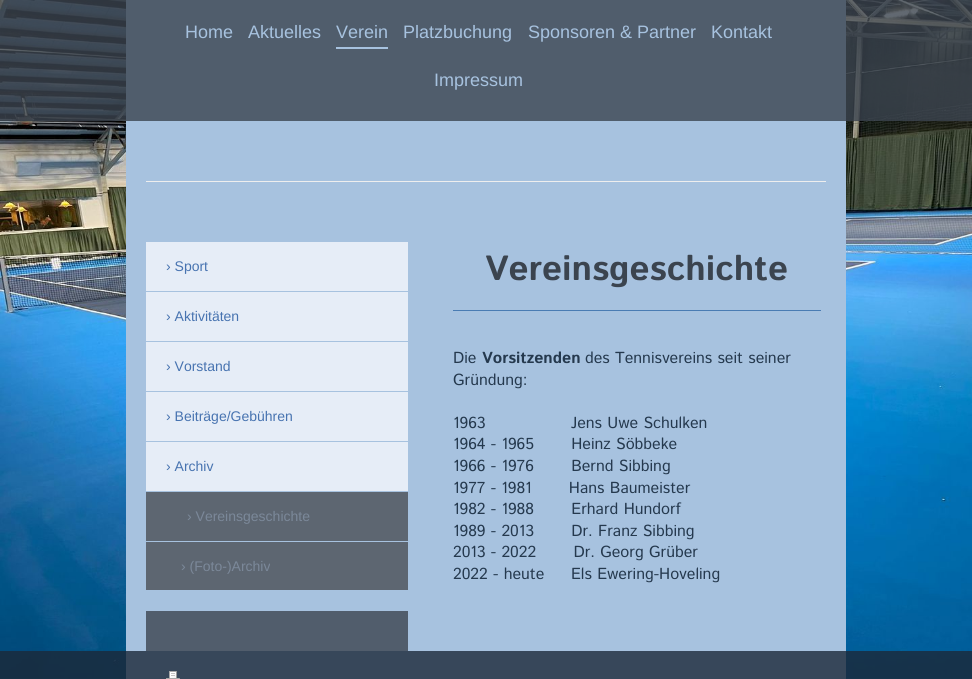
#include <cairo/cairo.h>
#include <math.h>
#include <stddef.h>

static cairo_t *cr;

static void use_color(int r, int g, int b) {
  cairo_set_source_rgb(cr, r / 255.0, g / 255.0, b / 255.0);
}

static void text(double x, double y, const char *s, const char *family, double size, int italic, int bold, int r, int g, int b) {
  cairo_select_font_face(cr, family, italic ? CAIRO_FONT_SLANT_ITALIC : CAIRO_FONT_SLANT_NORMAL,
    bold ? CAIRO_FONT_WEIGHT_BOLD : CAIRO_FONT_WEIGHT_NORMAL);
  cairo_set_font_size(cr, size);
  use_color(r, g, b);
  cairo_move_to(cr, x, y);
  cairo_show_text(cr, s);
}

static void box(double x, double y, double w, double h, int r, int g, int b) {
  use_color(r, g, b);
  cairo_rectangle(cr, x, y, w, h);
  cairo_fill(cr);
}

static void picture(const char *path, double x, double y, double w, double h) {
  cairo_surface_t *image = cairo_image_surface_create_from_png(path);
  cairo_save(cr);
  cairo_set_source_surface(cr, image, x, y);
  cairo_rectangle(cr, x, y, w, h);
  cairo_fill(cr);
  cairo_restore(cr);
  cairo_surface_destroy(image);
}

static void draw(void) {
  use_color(255, 255, 255);
  cairo_paint(cr);
  picture("img_01.png", 0, 0, 972, 679);
  box(126, 0, 720, 679, 167, 194, 223);
  cairo_set_source_rgba(cr, 0.231, 0.267, 0.31, 0.8);
  cairo_rectangle(cr, 0, 0, 972, 121);
  cairo_fill(cr);
  box(336, 47, 52, 2, 167, 194, 223);
  box(146, 181, 680, 1, 238, 238, 238);
  box(146, 242, 262, 249, 230, 237, 247);
  box(146, 291, 262, 1, 167, 194, 223);
  box(146, 341, 262, 1, 167, 194, 223);
  box(146, 391, 262, 1, 167, 194, 223);
  box(146, 441, 262, 1, 167, 194, 223);
  box(146, 492, 262, 49, 93, 102, 113);
  box(146, 542, 262, 48, 93, 102, 113);
  box(146, 611, 262, 40, 81, 93, 108);
  box(453, 310, 368, 1, 74, 124, 179);
  cairo_set_source_rgba(cr, 0.11, 0.161, 0.22, 0.8);
  cairo_rectangle(cr, 0, 651, 972, 28);
  cairo_fill(cr);
  picture("img_02.png", 166, 671, 14, 8);
  text(185, 38, "Home", "Liberation Sans", 18, 0, 0, 167, 194, 223);
  text(248, 38, "Aktuelles", "Liberation Sans", 18, 0, 0, 167, 194, 223);
  text(336, 38, "Verein", "Liberation Sans", 18, 0, 0, 167, 194, 223);
  text(403, 38, "Platzbuchung", "Liberation Sans", 18, 0, 0, 167, 194, 223);
  text(528, 38, "Sponsoren & Partner", "Liberation Sans", 18, 0, 0, 167, 194, 223);
  text(711, 38, "Kontakt", "Liberation Sans", 18, 0, 0, 167, 194, 223);
  text(434, 86, "Impressum", "Liberation Sans", 18, 0, 0, 167, 194, 223);
  text(166, 271, "› Sport", "Liberation Sans", 14, 0, 0, 71, 115, 176);
  text(166, 321, "› Aktivitäten", "Liberation Sans", 14, 0, 0, 71, 115, 176);
  text(166, 371, "› Vorstand", "Liberation Sans", 14, 0, 0, 71, 115, 176);
  text(166, 421, "› Beiträge/Gebühren", "Liberation Sans", 14, 0, 0, 71, 115, 176);
  text(166, 471, "› Archiv", "Liberation Sans", 14, 0, 0, 71, 115, 176);
  text(187, 521, "› Vereinsgeschichte", "Liberation Sans", 14, 0, 0, 123, 136, 153);
  text(181, 571, "› (Foto-)Archiv", "Liberation Sans", 14, 0, 0, 123, 136, 153);
  text(485, 280, "Vereinsgeschichte", "Istok Web", 35, 0, 1, 59, 68, 79);
  text(453, 363, "Die", "Istok Web", 16, 0, 0, 37, 57, 78);
  text(482, 363, "Vorsitzenden", "Istok Web", 16, 0, 1, 37, 57, 78);
  text(585, 363, "des Tennisvereins seit seiner", "Istok Web", 16, 0, 0, 37, 57, 78);
  text(453, 385, "Gründung:", "Istok Web", 16, 0, 0, 37, 57, 78);
  text(453, 428, "1963                Jens Uwe Schulken", "Istok Web", 16, 0, 0, 37, 57, 78);
  text(453, 449, "1964 - 1965       Heinz Söbbeke", "Istok Web", 16, 0, 0, 37, 57, 78);
  text(453, 471, "1966 - 1976       Bernd Sibbing", "Istok Web", 16, 0, 0, 37, 57, 78);
  text(453, 493, "1977 - 1981       Hans Baumeister", "Istok Web", 16, 0, 0, 37, 57, 78);
  text(453, 514, "1982 - 1988       Erhard Hundorf", "Istok Web", 16, 0, 0, 37, 57, 78);
  text(453, 536, "1989 - 2013       Dr. Franz Sibbing", "Istok Web", 16, 0, 0, 37, 57, 78);
  text(453, 557, "2013 - 2022       Dr. Georg Grüber", "Istok Web", 16, 0, 0, 37, 57, 78);
  text(453, 579, "2022 - heute     Els Ewering-Hoveling", "Istok Web", 16, 0, 0, 37, 57, 78);
}

int main(void) {
  cairo_surface_t *surface = cairo_image_surface_create(CAIRO_FORMAT_RGB24, 972, 679);
  cr = cairo_create(surface);
  cairo_font_options_t *options = cairo_font_options_create();
  cairo_font_options_set_hint_metrics(options, CAIRO_HINT_METRICS_OFF);
  cairo_font_options_set_hint_style(options, CAIRO_HINT_STYLE_NONE);
  cairo_set_font_options(cr, options);
  cairo_set_miter_limit(cr, 4);
  draw();
  cairo_surface_write_to_png(surface, "out.png");
  cairo_font_options_destroy(options);
  cairo_destroy(cr);
  cairo_surface_destroy(surface);
  return 0;
}
